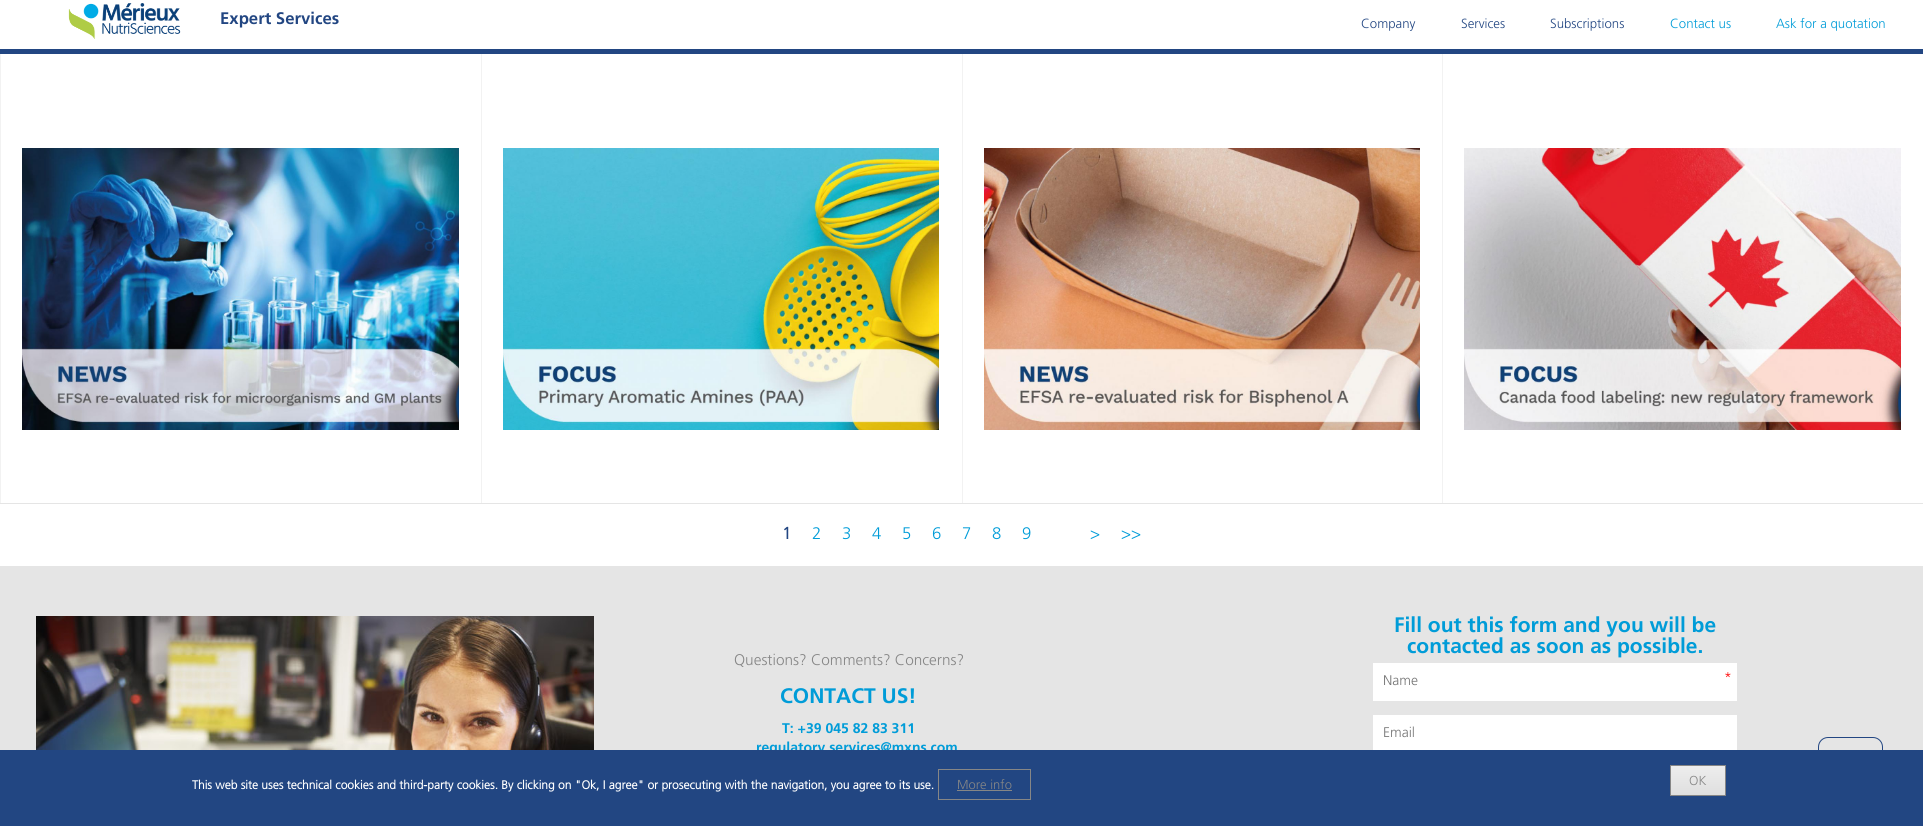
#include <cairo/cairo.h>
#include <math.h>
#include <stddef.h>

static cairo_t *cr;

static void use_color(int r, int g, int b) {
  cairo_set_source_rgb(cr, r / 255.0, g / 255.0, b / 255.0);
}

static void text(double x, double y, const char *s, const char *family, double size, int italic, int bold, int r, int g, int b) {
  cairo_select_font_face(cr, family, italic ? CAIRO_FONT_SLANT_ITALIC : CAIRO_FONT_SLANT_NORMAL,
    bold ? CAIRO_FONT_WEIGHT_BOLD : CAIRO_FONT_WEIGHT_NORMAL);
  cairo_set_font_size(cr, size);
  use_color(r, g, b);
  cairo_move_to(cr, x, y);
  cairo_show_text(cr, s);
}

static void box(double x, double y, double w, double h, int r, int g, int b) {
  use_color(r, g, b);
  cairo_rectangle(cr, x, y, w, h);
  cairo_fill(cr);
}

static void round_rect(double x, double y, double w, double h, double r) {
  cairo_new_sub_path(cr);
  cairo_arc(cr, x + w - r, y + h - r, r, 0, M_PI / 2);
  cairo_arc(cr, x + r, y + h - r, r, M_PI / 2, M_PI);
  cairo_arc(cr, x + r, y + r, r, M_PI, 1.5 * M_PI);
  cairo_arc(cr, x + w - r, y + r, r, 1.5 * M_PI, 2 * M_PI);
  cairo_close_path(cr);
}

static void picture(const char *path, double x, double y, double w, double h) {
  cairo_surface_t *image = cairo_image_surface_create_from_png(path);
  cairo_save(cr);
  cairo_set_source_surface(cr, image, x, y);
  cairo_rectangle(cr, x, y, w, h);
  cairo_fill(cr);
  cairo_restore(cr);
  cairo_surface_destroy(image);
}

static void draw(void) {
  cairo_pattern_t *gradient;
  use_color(229, 229, 229);
  cairo_paint(cr);
  box(0, 0, 1923, 49, 255, 255, 255);
  picture("img_01.png", 68, 3, 113, 36);
  box(0, 49, 1923, 5, 34, 70, 130);
  box(1, 54, 1922, 449, 255, 255, 255);
  box(0, 54, 1, 449, 242, 242, 242);
  picture("img_02.png", 22, 148, 437, 282);
  box(481, 54, 1, 449, 242, 242, 242);
  picture("img_03.png", 503, 148, 436, 282);
  box(962, 54, 1, 449, 242, 242, 242);
  picture("img_04.png", 984, 148, 436, 282);
  box(1442, 54, 1, 449, 242, 242, 242);
  picture("img_05.png", 1464, 148, 437, 282);
  box(0, 504, 1923, 62, 255, 255, 255);
  picture("img_06.png", 36, 616, 558, 134);
  box(1373, 663, 364, 38, 255, 255, 255);
  box(1373, 715, 364, 35, 255, 255, 255);
  round_rect(1818.5, 737.5, 64, 64, 9.5);
  use_color(34, 70, 130);
  cairo_set_line_width(cr, 1);
  cairo_stroke(cr);
  text(220, 24, "Expert Services", "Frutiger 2", 16.75, 0, 1, 34, 70, 130);
  text(1361, 28, "Company", "Frutiger Light", 13.25, 0, 0, 34, 70, 130);
  text(1461, 28, "Services", "Frutiger Light", 13.25, 0, 0, 34, 70, 130);
  text(1550, 28, "Subscriptions", "Frutiger Light", 13.25, 0, 0, 34, 70, 130);
  text(1670, 28, "Contact us", "Frutiger Light", 13.25, 0, 0, 0, 156, 216);
  text(1776, 28, "Ask for a quotation", "Frutiger Light", 13.25, 0, 0, 0, 156, 216);
  text(782, 539, "1", "Frutiger", 16.75, 0, 1, 34, 70, 130);
  text(812, 539, "2", "Frutiger Light", 16.75, 0, 0, 0, 156, 216);
  text(842, 539, "3", "Frutiger Light", 16.75, 0, 0, 0, 156, 216);
  text(872, 539, "4", "Frutiger Light", 16.75, 0, 0, 0, 156, 216);
  text(902, 539, "5", "Frutiger Light", 16.75, 0, 0, 0, 156, 216);
  text(932, 539, "6", "Frutiger Light", 16.75, 0, 0, 0, 156, 216);
  text(962, 539, "7", "Frutiger Light", 16.75, 0, 0, 0, 156, 216);
  text(992, 539, "8", "Frutiger Light", 16.75, 0, 0, 0, 156, 216);
  text(1022, 539, "9", "Frutiger Light", 16.75, 0, 0, 0, 156, 216);
  text(1090, 539, ">", "Frutiger Light", 16.75, 0, 0, 0, 156, 216);
  text(1121, 539, ">>", "Frutiger Light", 16.75, 0, 0, 0, 156, 216);
  text(734, 665, "Questions? Comments? Concerns?", "Frutiger Light", 15.4, 0, 0, 134, 134, 134);
  text(780, 703, "CONTACT US!", "Frutiger 2", 21, 0, 1, 0, 156, 216);
  text(782, 733, "T: +39 045 82 83 311", "Frutiger 2", 14, 0, 1, 0, 156, 216);
  text(756, 752, "regulatory.services@mxns.com", "Frutiger 2", 14, 0, 1, 0, 156, 216);
  text(1394, 632, "Fill out this form and you will be", "Frutiger 2", 21, 0, 1, 0, 156, 216);
  text(1407, 653, "contacted as soon as possible.", "Frutiger 2", 21, 0, 1, 0, 156, 216);
  text(1383, 685, "Name", "Frutiger Light", 14, 0, 0, 117, 117, 117);
  text(1724, 682, "*", "Frutiger Light", 14, 0, 0, 255, 0, 0);
  text(1383, 737, "Email", "Frutiger Light", 14, 0, 0, 117, 117, 117);
  box(0, 750, 1923, 76, 34, 70, 130);
  text(192, 789, "This web site uses technical cookies and third-party cookies. By clicking on \"Ok, I agree\" or prosecuting with the navigation, you agree to its use.", "Frutiger", 12, 0, 1, 255, 255, 255);
  cairo_rectangle(cr, 938.5, 769.5, 92, 30);
  use_color(134, 134, 134);
  cairo_stroke(cr);
  text(957, 789, "More info", "Frutiger Light", 13, 0, 0, 134, 134, 134);
  box(957, 790, 55, 1, 134, 134, 134);
  gradient = cairo_pattern_create_linear(1698, 766, 1698, 795);
  cairo_pattern_add_color_stop_rgba(gradient, 0.05, 0.929, 0.929, 0.929, 1);
  cairo_pattern_add_color_stop_rgba(gradient, 1, 0.875, 0.875, 0.875, 1);
  cairo_set_source(cr, gradient);
  cairo_pattern_destroy(gradient);
  cairo_rectangle(cr, 1671, 766, 54, 29);
  cairo_fill(cr);
  cairo_rectangle(cr, 1670.5, 765.5, 55, 30);
  use_color(134, 134, 134);
  cairo_stroke(cr);
  text(1689, 785, "OK", "Frutiger Light", 13, 0, 0, 134, 134, 134);
}

int main(void) {
  cairo_surface_t *surface = cairo_image_surface_create(CAIRO_FORMAT_RGB24, 1923, 826);
  cr = cairo_create(surface);
  cairo_font_options_t *options = cairo_font_options_create();
  cairo_font_options_set_hint_metrics(options, CAIRO_HINT_METRICS_OFF);
  cairo_font_options_set_hint_style(options, CAIRO_HINT_STYLE_NONE);
  cairo_set_font_options(cr, options);
  cairo_set_miter_limit(cr, 4);
  draw();
  cairo_surface_write_to_png(surface, "out.png");
  cairo_font_options_destroy(options);
  cairo_destroy(cr);
  cairo_surface_destroy(surface);
  return 0;
}
